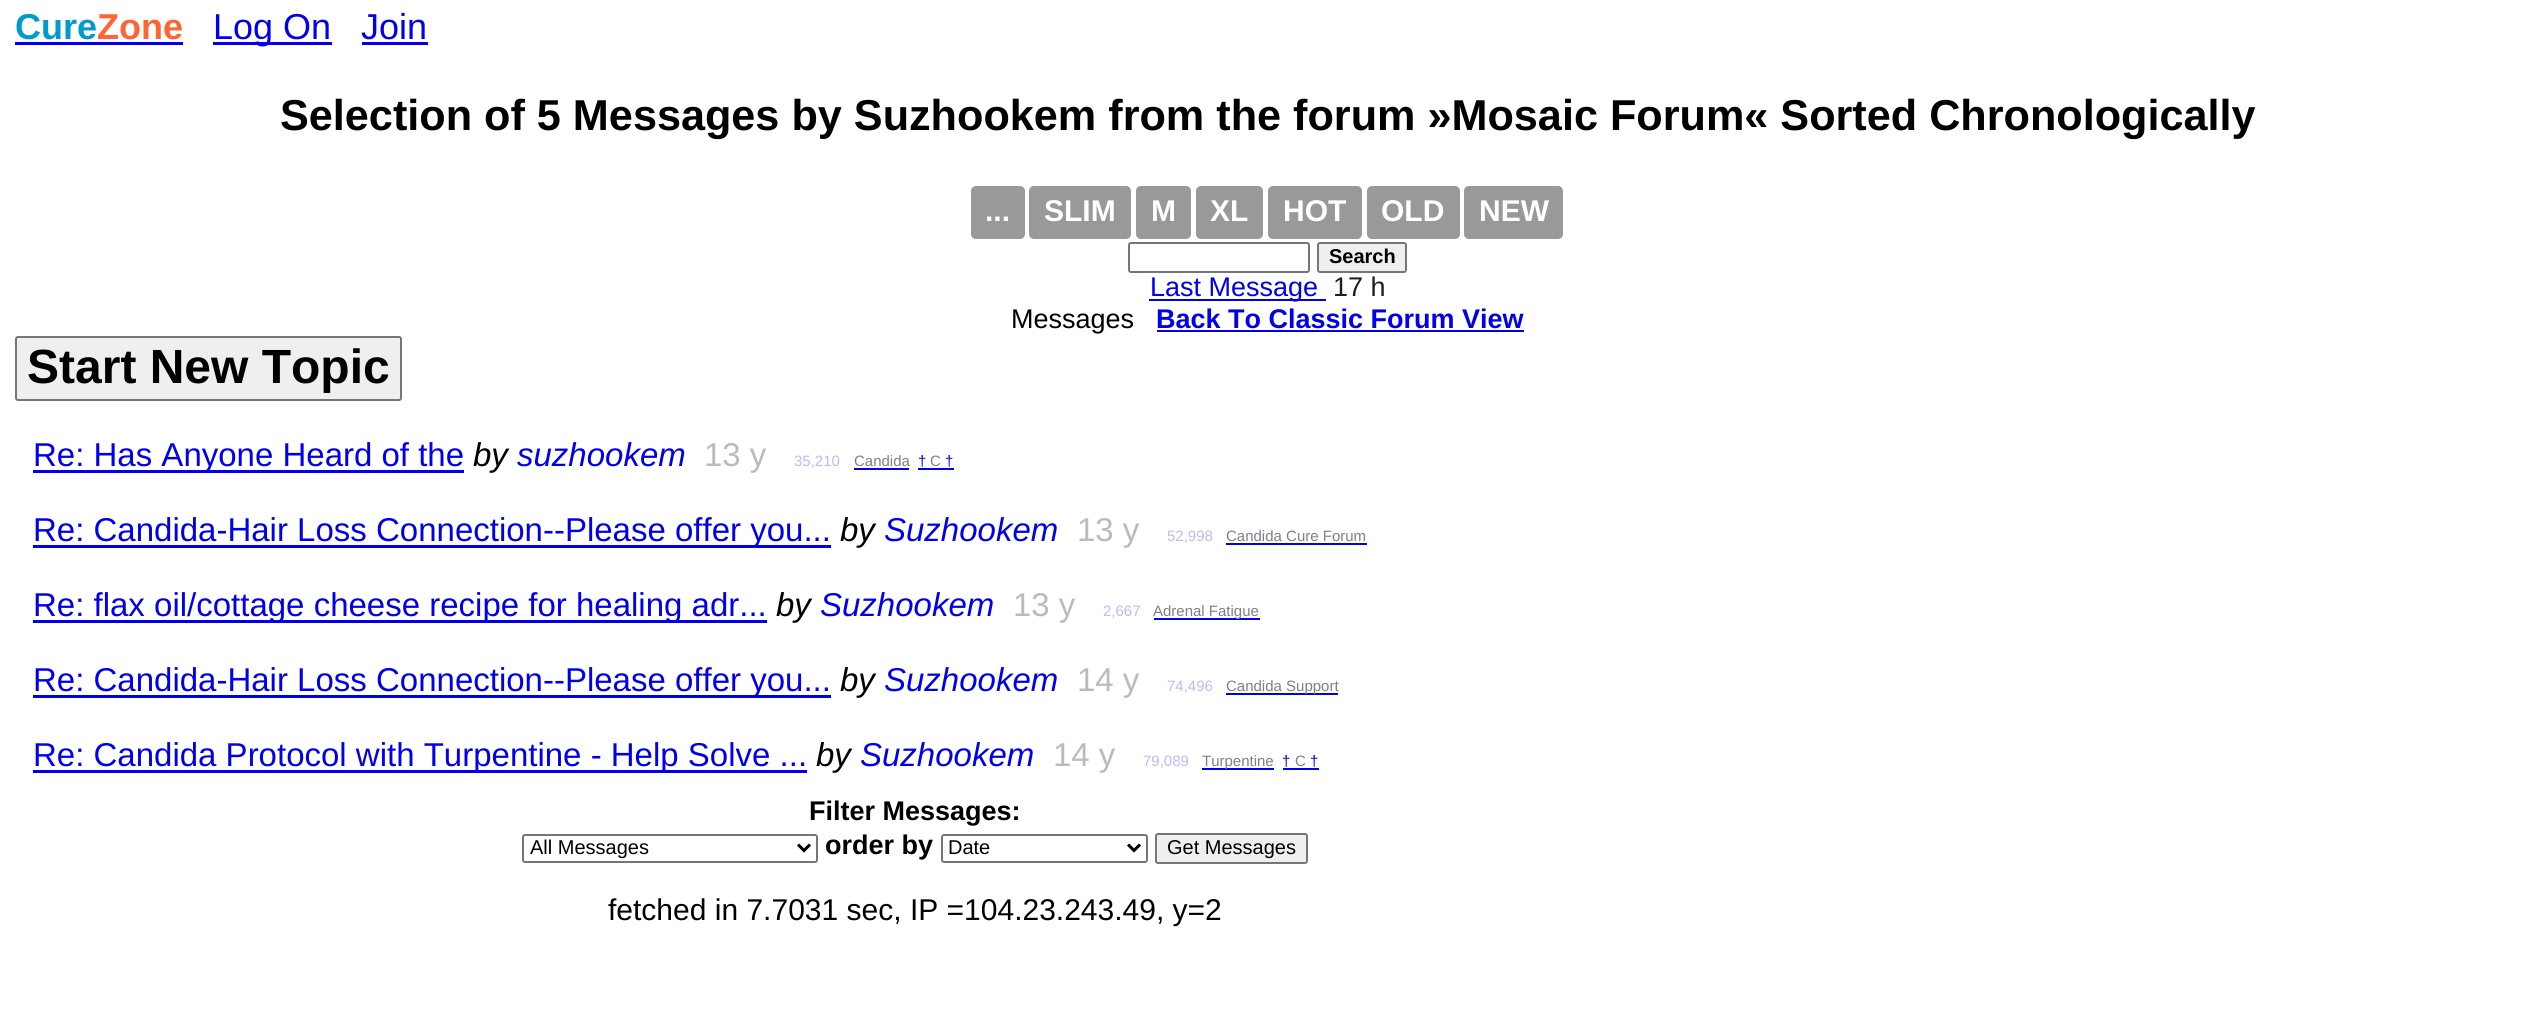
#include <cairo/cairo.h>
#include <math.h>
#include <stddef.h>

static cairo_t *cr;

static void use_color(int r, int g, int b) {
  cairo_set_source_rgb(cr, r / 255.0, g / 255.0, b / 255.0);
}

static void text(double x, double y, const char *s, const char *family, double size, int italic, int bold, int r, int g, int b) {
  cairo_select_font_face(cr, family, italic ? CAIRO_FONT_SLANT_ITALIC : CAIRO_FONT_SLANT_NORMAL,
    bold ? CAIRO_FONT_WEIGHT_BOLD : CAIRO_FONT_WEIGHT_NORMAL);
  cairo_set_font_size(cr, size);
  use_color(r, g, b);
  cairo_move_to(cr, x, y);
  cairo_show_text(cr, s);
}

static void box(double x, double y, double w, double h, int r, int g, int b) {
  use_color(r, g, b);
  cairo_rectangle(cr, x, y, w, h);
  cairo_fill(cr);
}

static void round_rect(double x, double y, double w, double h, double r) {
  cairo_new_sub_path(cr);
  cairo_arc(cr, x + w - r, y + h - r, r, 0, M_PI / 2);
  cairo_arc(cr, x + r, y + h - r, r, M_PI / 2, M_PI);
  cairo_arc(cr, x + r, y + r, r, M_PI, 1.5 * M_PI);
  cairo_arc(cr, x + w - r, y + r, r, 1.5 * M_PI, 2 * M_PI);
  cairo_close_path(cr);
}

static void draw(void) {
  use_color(255, 255, 255);
  cairo_paint(cr);
  box(15, 42, 168, 3, 0, 0, 238);
  box(213, 42, 119, 3, 0, 0, 238);
  box(362, 42, 66, 3, 0, 0, 238);
  use_color(153, 153, 153);
  round_rect(971, 186, 54, 53, 5);
  cairo_fill(cr);
  round_rect(1029, 186, 102, 53, 5);
  cairo_fill(cr);
  round_rect(1136, 186, 55, 53, 5);
  cairo_fill(cr);
  round_rect(1196, 186, 67, 53, 5);
  cairo_fill(cr);
  round_rect(1268, 186, 94, 53, 5);
  cairo_fill(cr);
  round_rect(1367, 186, 93, 53, 5);
  cairo_fill(cr);
  round_rect(1464, 186, 99, 53, 5);
  cairo_fill(cr);
  round_rect(1129, 243, 180, 29, 2);
  use_color(118, 118, 118);
  cairo_stroke(cr);
  use_color(239, 239, 239);
  round_rect(1318, 243, 88, 29, 2);
  cairo_fill_preserve(cr);
  use_color(118, 118, 118);
  cairo_stroke(cr);
  box(1149, 299, 177, 2, 0, 0, 238);
  box(1157, 330, 367, 2, 0, 0, 238);
  use_color(239, 239, 239);
  round_rect(16, 337, 385, 63, 2);
  cairo_fill_preserve(cr);
  use_color(118, 118, 118);
  cairo_stroke(cr);
  box(33, 470, 431, 3, 0, 0, 238);
  box(854, 468, 55, 2, 0, 0, 238);
  box(918, 468, 36, 2, 0, 0, 238);
  box(33, 545, 798, 3, 0, 0, 238);
  box(1226, 543, 141, 2, 0, 0, 238);
  box(33, 620, 734, 3, 0, 0, 238);
  box(1154, 618, 106, 2, 0, 0, 238);
  box(33, 695, 798, 3, 0, 0, 238);
  box(1226, 693, 112, 2, 0, 0, 238);
  box(33, 770, 774, 3, 0, 0, 238);
  box(1202, 768, 72, 2, 0, 0, 238);
  box(1283, 768, 36, 2, 0, 0, 238);
  round_rect(523, 835, 294, 27, 2);
  use_color(118, 118, 118);
  cairo_stroke(cr);
  cairo_new_path(cr);
  cairo_move_to(cr, 798, 844.5);
  cairo_line_to(cr, 804, 850.5);
  cairo_line_to(cr, 810, 844.5);
  use_color(0, 0, 0);
  cairo_set_line_width(cr, 3);
  cairo_stroke(cr);
  round_rect(942, 835, 205, 27, 2);
  use_color(118, 118, 118);
  cairo_set_line_width(cr, 2);
  cairo_stroke(cr);
  cairo_new_path(cr);
  cairo_move_to(cr, 1128, 844.5);
  cairo_line_to(cr, 1134, 850.5);
  cairo_line_to(cr, 1140, 844.5);
  use_color(0, 0, 0);
  cairo_set_line_width(cr, 3);
  cairo_stroke(cr);
  use_color(239, 239, 239);
  round_rect(1156, 834, 151, 29, 2);
  cairo_fill_preserve(cr);
  use_color(118, 118, 118);
  cairo_set_line_width(cr, 2);
  cairo_stroke(cr);
  text(15, 39, "Cure", "Liberation Sans", 36, 0, 1, 1, 154, 204);
  text(97, 39, "Zone", "Liberation Sans", 36, 0, 1, 254, 101, 51);
  text(213, 39, "Log On", "Liberation Sans", 36, 0, 0, 0, 0, 238);
  text(361, 39, "Join", "Liberation Sans", 36, 0, 0, 0, 0, 238);
  text(280, 130, "Selection of 5 Messages by Suzhookem from the forum »Mosaic Forum« Sorted Chronologically", "Liberation Sans", 43.2, 0, 1, 0, 0, 0);
  text(985, 221, "...", "Liberation Sans", 30, 0, 1, 255, 255, 255);
  text(1044, 221, "SLIM", "Liberation Sans", 30, 0, 1, 255, 255, 255);
  text(1151, 221, "M", "Liberation Sans", 30, 0, 1, 255, 255, 255);
  text(1210, 221, "XL", "Liberation Sans", 30, 0, 1, 255, 255, 255);
  text(1283, 221, "HOT", "Liberation Sans", 30, 0, 1, 255, 255, 255);
  text(1381, 221, "OLD", "Liberation Sans", 30, 0, 1, 255, 255, 255);
  text(1479, 221, "NEW", "Liberation Sans", 30, 0, 1, 255, 255, 255);
  text(1329, 263, "Search", "Liberation Sans", 20, 0, 1, 0, 0, 0);
  text(1150, 296, "Last Message", "Liberation Sans", 27, 0, 0, 0, 0, 238);
  text(1333, 296, "17 h", "Liberation Sans", 27, 0, 0, 31, 31, 31);
  text(1011, 328, "Messages", "Liberation Sans", 27, 0, 0, 0, 0, 0);
  text(1156, 328, "Back To Classic Forum View", "Liberation Sans", 27, 0, 1, 0, 0, 238);
  text(27, 383, "Start New Topic", "Liberation Sans", 48, 0, 1, 0, 0, 0);
  text(33, 466, "Re: Has Anyone Heard of the", "Liberation Sans", 33, 0, 0, 0, 0, 238);
  text(473, 466, "by", "Liberation Sans", 33, 1, 0, 0, 0, 0);
  text(517, 466, "suzhookem", "Liberation Sans", 33, 1, 0, 0, 0, 238);
  text(704, 466, "13 y", "Liberation Sans", 33, 0, 0, 187, 187, 187);
  text(794, 466, "35,210", "Liberation Sans", 15, 0, 0, 187, 187, 251);
  text(854, 466, "Candida", "Liberation Sans", 15, 0, 0, 128, 128, 128);
  text(918, 466, "†", "Liberation Sans", 15, 0, 0, 0, 0, 238);
  text(930, 466, "C", "Liberation Sans", 15, 0, 0, 128, 128, 128);
  text(945, 466, "†", "Liberation Sans", 15, 0, 0, 0, 0, 238);
  text(33, 541, "Re: Candida-Hair Loss Connection--Please offer you...", "Liberation Sans", 33, 0, 0, 0, 0, 238);
  text(840, 541, "by", "Liberation Sans", 33, 1, 0, 0, 0, 0);
  text(884, 541, "Suzhookem", "Liberation Sans", 33, 1, 0, 0, 0, 238);
  text(1077, 541, "13 y", "Liberation Sans", 33, 0, 0, 187, 187, 187);
  text(1167, 541, "52,998", "Liberation Sans", 15, 0, 0, 187, 187, 251);
  text(1226, 541, "Candida Cure Forum", "Liberation Sans", 15, 0, 0, 128, 128, 128);
  text(33, 616, "Re: flax oil/cottage cheese recipe for healing adr...", "Liberation Sans", 33, 0, 0, 0, 0, 238);
  text(776, 616, "by", "Liberation Sans", 33, 1, 0, 0, 0, 0);
  text(820, 616, "Suzhookem", "Liberation Sans", 33, 1, 0, 0, 0, 238);
  text(1013, 616, "13 y", "Liberation Sans", 33, 0, 0, 187, 187, 187);
  text(1103, 616, "2,667", "Liberation Sans", 15, 0, 0, 187, 187, 251);
  text(1153, 616, "Adrenal Fatigue", "Liberation Sans", 15, 0, 0, 128, 128, 128);
  text(33, 691, "Re: Candida-Hair Loss Connection--Please offer you...", "Liberation Sans", 33, 0, 0, 0, 0, 238);
  text(840, 691, "by", "Liberation Sans", 33, 1, 0, 0, 0, 0);
  text(884, 691, "Suzhookem", "Liberation Sans", 33, 1, 0, 0, 0, 238);
  text(1077, 691, "14 y", "Liberation Sans", 33, 0, 0, 187, 187, 187);
  text(1167, 691, "74,496", "Liberation Sans", 15, 0, 0, 187, 187, 251);
  text(1226, 691, "Candida Support", "Liberation Sans", 15, 0, 0, 128, 128, 128);
  text(33, 766, "Re: Candida Protocol with Turpentine - Help Solve ...", "Liberation Sans", 33, 0, 0, 0, 0, 238);
  text(816, 766, "by", "Liberation Sans", 33, 1, 0, 0, 0, 0);
  text(860, 766, "Suzhookem", "Liberation Sans", 33, 1, 0, 0, 0, 238);
  text(1053, 766, "14 y", "Liberation Sans", 33, 0, 0, 187, 187, 187);
  text(1143, 766, "79,089", "Liberation Sans", 15, 0, 0, 187, 187, 251);
  text(1202, 766, "Turpentine", "Liberation Sans", 15, 0, 0, 128, 128, 128);
  text(1282, 766, "†", "Liberation Sans", 15, 0, 0, 0, 0, 238);
  text(1295, 766, "C", "Liberation Sans", 15, 0, 0, 128, 128, 128);
  text(1310, 766, "†", "Liberation Sans", 15, 0, 0, 0, 0, 238);
  text(809, 820, "Filter Messages:", "Liberation Sans", 27, 0, 1, 0, 0, 0);
  text(530, 854, "All Messages", "Liberation Sans", 20, 0, 0, 0, 0, 0);
  text(825, 854, "order by", "Liberation Sans", 27, 0, 1, 0, 0, 0);
  text(948, 854, "Date", "Liberation Sans", 20, 0, 0, 0, 0, 0);
  text(1167, 854, "Get Messages", "Liberation Sans", 20, 0, 0, 0, 0, 0);
  text(608, 920, "fetched in 7.7031 sec, IP =104.23.243.49, y=2", "Liberation Sans", 30, 0, 0, 0, 0, 0);
}

int main(void) {
  cairo_surface_t *surface = cairo_image_surface_create(CAIRO_FORMAT_RGB24, 2534, 1031);
  cr = cairo_create(surface);
  cairo_font_options_t *options = cairo_font_options_create();
  cairo_font_options_set_hint_metrics(options, CAIRO_HINT_METRICS_OFF);
  cairo_font_options_set_hint_style(options, CAIRO_HINT_STYLE_NONE);
  cairo_set_font_options(cr, options);
  cairo_set_miter_limit(cr, 4);
  draw();
  cairo_surface_write_to_png(surface, "out.png");
  cairo_font_options_destroy(options);
  cairo_destroy(cr);
  cairo_surface_destroy(surface);
  return 0;
}
